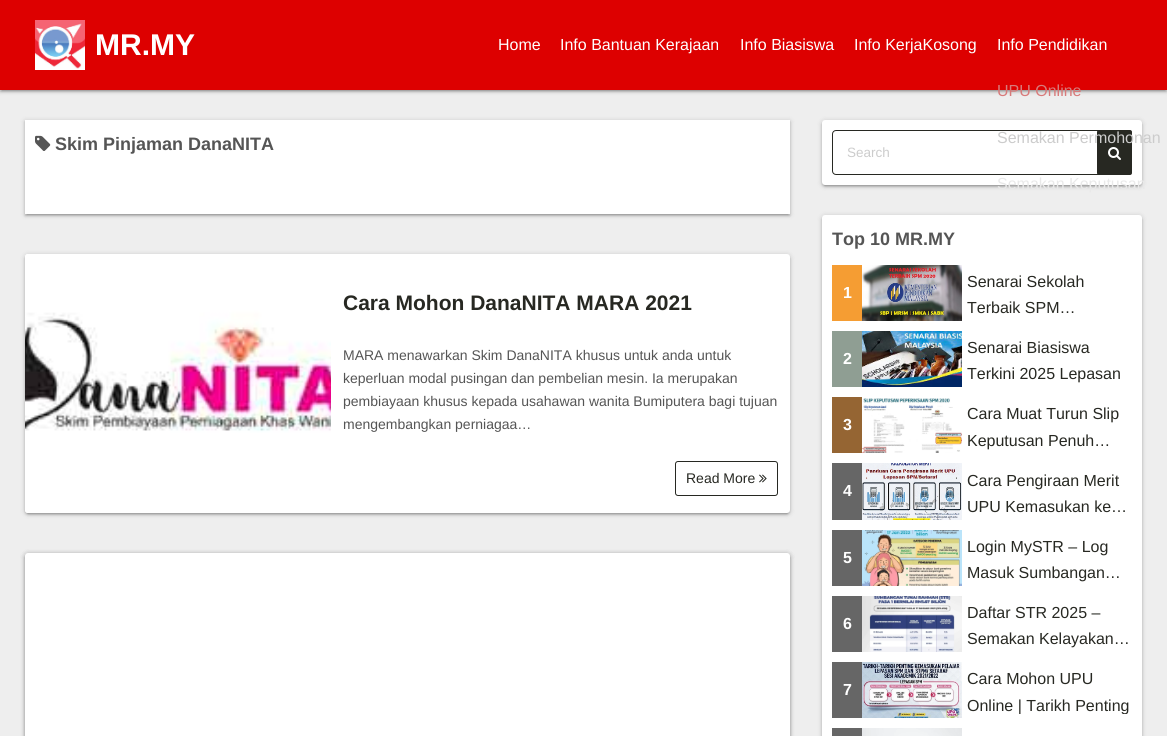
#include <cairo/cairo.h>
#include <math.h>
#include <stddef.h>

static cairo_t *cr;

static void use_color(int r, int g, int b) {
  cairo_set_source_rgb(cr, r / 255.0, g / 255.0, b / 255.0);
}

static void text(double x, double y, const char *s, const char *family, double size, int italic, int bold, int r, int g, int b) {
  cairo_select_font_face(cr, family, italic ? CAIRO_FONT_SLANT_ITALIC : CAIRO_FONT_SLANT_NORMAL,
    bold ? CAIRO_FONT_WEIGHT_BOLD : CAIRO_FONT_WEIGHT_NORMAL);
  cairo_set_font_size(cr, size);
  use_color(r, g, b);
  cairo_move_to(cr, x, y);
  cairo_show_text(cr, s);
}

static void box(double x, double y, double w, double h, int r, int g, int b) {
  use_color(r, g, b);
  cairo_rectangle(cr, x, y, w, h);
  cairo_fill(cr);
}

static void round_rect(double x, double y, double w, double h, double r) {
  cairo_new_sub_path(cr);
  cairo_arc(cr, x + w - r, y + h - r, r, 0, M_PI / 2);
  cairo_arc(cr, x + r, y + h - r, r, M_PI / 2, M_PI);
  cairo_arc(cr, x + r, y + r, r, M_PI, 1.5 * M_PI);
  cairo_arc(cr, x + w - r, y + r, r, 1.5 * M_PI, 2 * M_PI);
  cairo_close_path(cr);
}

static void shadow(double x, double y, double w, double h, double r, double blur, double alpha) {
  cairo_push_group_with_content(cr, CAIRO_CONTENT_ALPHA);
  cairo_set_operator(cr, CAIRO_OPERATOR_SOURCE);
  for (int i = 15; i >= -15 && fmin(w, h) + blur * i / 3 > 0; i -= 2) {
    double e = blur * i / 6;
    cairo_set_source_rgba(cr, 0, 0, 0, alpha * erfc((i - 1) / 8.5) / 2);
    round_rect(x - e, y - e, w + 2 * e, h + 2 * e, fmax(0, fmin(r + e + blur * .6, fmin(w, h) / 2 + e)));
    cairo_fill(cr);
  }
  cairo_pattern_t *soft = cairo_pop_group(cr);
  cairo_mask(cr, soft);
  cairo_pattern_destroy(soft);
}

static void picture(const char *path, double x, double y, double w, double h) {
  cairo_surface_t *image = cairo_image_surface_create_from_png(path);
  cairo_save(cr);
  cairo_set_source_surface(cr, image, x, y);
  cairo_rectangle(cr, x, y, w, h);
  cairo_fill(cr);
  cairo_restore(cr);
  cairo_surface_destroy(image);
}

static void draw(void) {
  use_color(238, 238, 238);
  cairo_paint(cr);
  use_color(0, 0, 0);
  shadow(0, 1, 1167, 90, 0, 2.5, 0.2);
  shadow(2, 5, 1163, 86, 0, 0.5, 0.12);
  shadow(0, 2, 1167, 90, 0, 1, 0.14);
  box(0, 0, 1167, 90, 221, 0, 0);
  picture("img_01.png", 35, 20, 50, 50);
  use_color(0, 0, 0);
  shadow(25, 121, 765, 94, 0, 2.5, 0.2);
  shadow(27, 125, 761, 90, 0, 0.5, 0.12);
  shadow(25, 122, 765, 94, 0, 1, 0.14);
  box(25, 120, 765, 94, 255, 255, 255);
  picture("img_02.png", 35, 135, 16, 16);
  use_color(0, 0, 0);
  shadow(25, 255, 765, 259, 3, 2.5, 0.2);
  shadow(27, 259, 761, 255, 1, 0.5, 0.12);
  shadow(25, 256, 765, 259, 3, 1, 0.14);
  use_color(255, 255, 255);
  round_rect(25, 254, 765, 259, 3);
  cairo_fill(cr);
  picture("img_03.png", 25, 254, 306, 259);
  round_rect(675.5, 461.5, 102, 34, 2.5);
  use_color(39, 40, 34);
  cairo_set_line_width(cr, 1);
  cairo_stroke(cr);
  picture("img_04.png", 759, 474, 8, 9);
  use_color(0, 0, 0);
  shadow(25, 554, 765, 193, 3, 2.5, 0.2);
  shadow(25, 555, 765, 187, 3, 1, 0.14);
  use_color(255, 255, 255);
  round_rect(25, 553, 765, 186, 3);
  cairo_fill(cr);
  cairo_save(cr);
  cairo_set_fill_rule(cr, CAIRO_FILL_RULE_EVEN_ODD);
  cairo_new_path(cr);
  cairo_move_to(cr, 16, 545);
  cairo_line_to(cr, 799, 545);
  cairo_line_to(cr, 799, 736);
  cairo_line_to(cr, 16, 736);
  cairo_close_path(cr);
  cairo_move_to(cr, 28, 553);
  cairo_line_to(cr, 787, 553);
  cairo_curve_to(cr, 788.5, 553, 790, 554.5, 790, 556);
  cairo_line_to(cr, 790, 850);
  cairo_curve_to(cr, 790, 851.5, 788.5, 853, 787, 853);
  cairo_line_to(cr, 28, 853);
  cairo_curve_to(cr, 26.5, 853, 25, 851.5, 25, 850);
  cairo_line_to(cr, 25, 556);
  cairo_curve_to(cr, 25, 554.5, 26.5, 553, 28, 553);
  cairo_close_path(cr);
  cairo_clip(cr);
  use_color(0, 0, 0);
  shadow(25, 554, 765, 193, 3, 2.5, 0.2);
  cairo_restore(cr);
  use_color(0, 0, 0);
  shadow(822, 121, 320, 65, 3, 2.5, 0.2);
  shadow(824, 125, 316, 61, 1, 0.5, 0.12);
  shadow(822, 122, 320, 65, 3, 1, 0.14);
  use_color(255, 255, 255);
  round_rect(822, 120, 320, 65, 3);
  cairo_fill(cr);
  round_rect(832.5, 130.5, 299, 44, 3.5);
  use_color(39, 40, 34);
  cairo_stroke(cr);
  round_rect(1097, 130, 35, 45, 2);
  cairo_fill(cr);
  picture("img_05.png", 1108, 147, 13, 13);
  use_color(0, 0, 0);
  shadow(822, 216, 320, 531, 3, 2.5, 0.2);
  shadow(822, 217, 320, 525, 3, 1, 0.14);
  use_color(255, 255, 255);
  round_rect(822, 215, 320, 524, 3);
  cairo_fill(cr);
  box(832, 265, 30, 56, 245, 157, 51);
  picture("img_06.png", 862, 265, 100, 56);
  box(832, 331, 30, 56, 143, 158, 147);
  picture("img_07.png", 862, 331, 100, 56);
  box(832, 397, 30, 56, 149, 101, 51);
  picture("img_08.png", 862, 398, 100, 55);
  box(832, 463, 30, 57, 102, 102, 102);
  picture("img_09.png", 862, 463, 100, 57);
  box(832, 530, 30, 56, 102, 102, 102);
  picture("img_10.png", 862, 530, 100, 56);
  box(832, 596, 30, 56, 102, 102, 102);
  picture("img_11.png", 862, 596, 100, 56);
  box(832, 662, 30, 56, 102, 102, 102);
  picture("img_12.png", 862, 662, 100, 56);
  box(832, 728, 30, 8, 102, 102, 102);
  picture("img_13.png", 862, 728, 100, 8);
  text(95, 55, "MR.MY", "Liberation Sans", 30, 0, 1, 255, 255, 255);
  text(498, 50, "Home", "Liberation Sans", 16, 0, 0, 255, 255, 255);
  text(560, 50, "Info Bantuan Kerajaan", "Liberation Sans", 16, 0, 0, 255, 255, 255);
  text(740, 50, "Info Biasiswa", "Liberation Sans", 16, 0, 0, 255, 255, 255);
  text(854, 50, "Info KerjaKosong", "Liberation Sans", 16, 0, 0, 255, 255, 255);
  text(997, 50, "Info Pendidikan", "Liberation Sans", 16, 0, 0, 255, 255, 255);
  text(997, 96, "UPU Online", "Liberation Sans", 16, 0, 0, 216, 122, 122);
  text(997, 143, "Semakan Permohonan", "Liberation Sans", 16, 0, 0, 204, 204, 204);
  text(997, 189, "Semakan Keputusan", "Liberation Sans", 16, 0, 0, 233, 233, 233);
  text(55, 150, "Skim Pinjaman DanaNITA", "Liberation Sans", 18, 0, 1, 85, 85, 85);
  text(343, 310, "Cara Mohon DanaNITA MARA 2021", "Liberation Sans", 21, 0, 1, 39, 40, 34);
  text(343, 360, "MARA menawarkan Skim DanaNITA khusus untuk anda untuk", "Liberation Sans", 14, 0, 0, 85, 85, 85);
  text(343, 383, "keperluan modal pusingan dan pembelian mesin. Ia merupakan", "Liberation Sans", 14, 0, 0, 85, 85, 85);
  text(343, 406, "pembiayaan khusus kepada usahawan wanita Bumiputera bagi tujuan", "Liberation Sans", 14, 0, 0, 85, 85, 85);
  text(343, 429, "mengembangkan perniagaa…", "Liberation Sans", 14, 0, 0, 85, 85, 85);
  text(686, 483, "Read More", "Liberation Sans", 14, 0, 0, 39, 40, 34);
  text(847, 157, "Search", "Liberation Sans", 13.5, 0, 0, 204, 204, 204);
  text(832, 245, "Top 10 MR.MY", "Liberation Sans", 18, 0, 1, 85, 85, 85);
  text(843, 298, "1", "Liberation Sans", 16, 0, 1, 255, 255, 255);
  text(967, 287, "Senarai Sekolah", "Liberation Sans", 16, 0, 0, 39, 40, 34);
  text(967, 313, "Terbaik SPM…", "Liberation Sans", 16, 0, 0, 39, 40, 34);
  text(843, 364, "2", "Liberation Sans", 16, 0, 1, 255, 255, 255);
  text(967, 353, "Senarai Biasiswa", "Liberation Sans", 16, 0, 0, 39, 40, 34);
  text(967, 379, "Terkini 2025 Lepasan", "Liberation Sans", 16, 0, 0, 39, 40, 34);
  text(843, 430, "3", "Liberation Sans", 16, 0, 1, 255, 255, 255);
  text(967, 419, "Cara Muat Turun Slip", "Liberation Sans", 16, 0, 0, 39, 40, 34);
  text(967, 446, "Keputusan Penuh…", "Liberation Sans", 16, 0, 0, 39, 40, 34);
  text(843, 496, "4", "Liberation Sans", 16, 0, 1, 255, 255, 255);
  text(967, 486, "Cara Pengiraan Merit", "Liberation Sans", 16, 0, 0, 39, 40, 34);
  text(967, 512, "UPU Kemasukan ke…", "Liberation Sans", 16, 0, 0, 39, 40, 34);
  text(843, 563, "5", "Liberation Sans", 16, 0, 1, 255, 255, 255);
  text(967, 552, "Login MySTR – Log", "Liberation Sans", 16, 0, 0, 39, 40, 34);
  text(967, 578, "Masuk Sumbangan…", "Liberation Sans", 16, 0, 0, 39, 40, 34);
  text(843, 629, "6", "Liberation Sans", 16, 0, 1, 255, 255, 255);
  text(967, 618, "Daftar STR 2025 –", "Liberation Sans", 16, 0, 0, 39, 40, 34);
  text(967, 644, "Semakan Kelayakan…", "Liberation Sans", 16, 0, 0, 39, 40, 34);
  text(843, 695, "7", "Liberation Sans", 16, 0, 1, 255, 255, 255);
  text(967, 684, "Cara Mohon UPU", "Liberation Sans", 16, 0, 0, 39, 40, 34);
  cairo_save(cr);
  cairo_rectangle(cr, 967, 666, 165, 48);
  cairo_clip(cr);
  text(967, 711, "Online | Tarikh Penting", "Liberation Sans", 16, 0, 0, 39, 40, 34);
  cairo_restore(cr);
}

int main(void) {
  cairo_surface_t *surface = cairo_image_surface_create(CAIRO_FORMAT_RGB24, 1167, 736);
  cr = cairo_create(surface);
  cairo_font_options_t *options = cairo_font_options_create();
  cairo_font_options_set_hint_metrics(options, CAIRO_HINT_METRICS_OFF);
  cairo_font_options_set_hint_style(options, CAIRO_HINT_STYLE_NONE);
  cairo_set_font_options(cr, options);
  cairo_set_miter_limit(cr, 4);
  draw();
  cairo_surface_write_to_png(surface, "out.png");
  cairo_font_options_destroy(options);
  cairo_destroy(cr);
  cairo_surface_destroy(surface);
  return 0;
}
